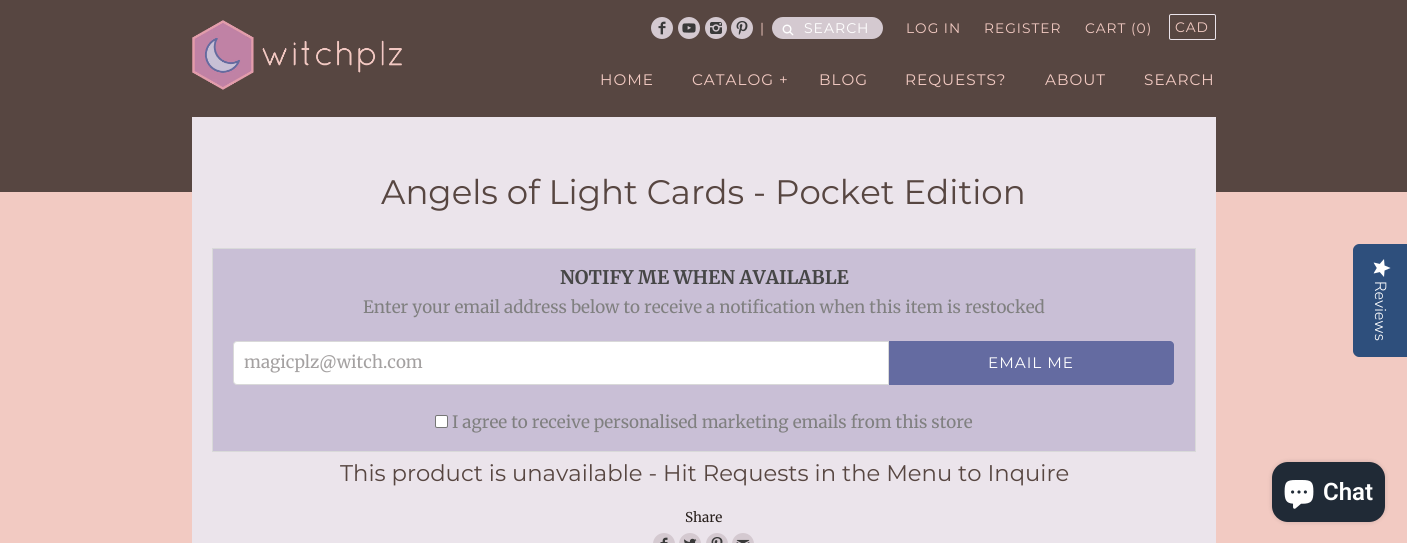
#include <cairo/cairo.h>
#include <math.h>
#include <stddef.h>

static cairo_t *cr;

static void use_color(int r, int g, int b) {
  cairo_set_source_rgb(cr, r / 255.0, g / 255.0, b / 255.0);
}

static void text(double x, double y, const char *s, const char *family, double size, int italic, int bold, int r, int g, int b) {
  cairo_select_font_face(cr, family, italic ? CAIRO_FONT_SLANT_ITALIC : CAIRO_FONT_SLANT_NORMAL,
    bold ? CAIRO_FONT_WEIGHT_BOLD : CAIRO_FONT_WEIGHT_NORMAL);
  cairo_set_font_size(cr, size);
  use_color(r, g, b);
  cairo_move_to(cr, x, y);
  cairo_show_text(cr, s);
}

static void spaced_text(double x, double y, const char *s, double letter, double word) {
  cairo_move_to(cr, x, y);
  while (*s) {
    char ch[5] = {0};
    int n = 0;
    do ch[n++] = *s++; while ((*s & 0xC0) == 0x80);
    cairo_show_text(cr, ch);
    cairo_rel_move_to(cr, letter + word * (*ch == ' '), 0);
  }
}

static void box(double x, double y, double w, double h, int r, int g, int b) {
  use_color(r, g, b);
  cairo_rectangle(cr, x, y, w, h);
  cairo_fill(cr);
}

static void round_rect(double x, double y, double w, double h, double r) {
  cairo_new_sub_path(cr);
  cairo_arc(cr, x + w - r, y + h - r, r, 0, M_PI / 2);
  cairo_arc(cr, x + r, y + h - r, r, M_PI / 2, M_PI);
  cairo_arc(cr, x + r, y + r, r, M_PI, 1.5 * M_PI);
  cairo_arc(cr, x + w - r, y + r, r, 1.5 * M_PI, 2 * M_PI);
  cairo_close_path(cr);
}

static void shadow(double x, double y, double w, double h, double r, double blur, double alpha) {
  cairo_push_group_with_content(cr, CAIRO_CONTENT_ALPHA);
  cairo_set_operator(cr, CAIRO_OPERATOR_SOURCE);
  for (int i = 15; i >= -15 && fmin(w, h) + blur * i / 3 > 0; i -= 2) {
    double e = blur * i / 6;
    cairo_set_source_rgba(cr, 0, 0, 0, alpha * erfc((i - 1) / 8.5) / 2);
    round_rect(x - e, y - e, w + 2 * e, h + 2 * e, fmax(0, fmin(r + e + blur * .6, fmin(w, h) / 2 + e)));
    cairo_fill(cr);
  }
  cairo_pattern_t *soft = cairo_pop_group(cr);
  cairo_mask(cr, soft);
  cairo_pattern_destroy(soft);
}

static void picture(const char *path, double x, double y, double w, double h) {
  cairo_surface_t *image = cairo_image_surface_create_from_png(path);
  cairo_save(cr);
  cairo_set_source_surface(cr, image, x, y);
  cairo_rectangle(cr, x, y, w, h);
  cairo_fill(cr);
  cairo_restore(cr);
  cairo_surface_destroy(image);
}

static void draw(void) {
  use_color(242, 202, 194);
  cairo_paint(cr);
  box(0, 0, 1407, 192, 87, 70, 65);
  picture("img_01.png", 192, 20, 210, 70);
  use_color(212, 201, 208);
  cairo_arc(cr, 662, 28, 11, 0, 2 * M_PI);
  cairo_fill(cr);
  picture("img_02.png", 658, 21, 8, 14);
  cairo_arc(cr, 689, 28, 11, 0, 2 * M_PI);
  cairo_fill(cr);
  picture("img_03.png", 682, 23, 14, 10);
  cairo_arc(cr, 716, 28, 11, 0, 2 * M_PI);
  cairo_fill(cr);
  picture("img_04.png", 710, 22, 12, 12);
  cairo_arc(cr, 742, 28, 11, 0, 2 * M_PI);
  cairo_fill(cr);
  picture("img_05.png", 736, 21, 12, 14);
  round_rect(772, 17, 111, 22, 11);
  cairo_fill(cr);
  picture("img_06.png", 782, 24, 12, 12);
  round_rect(1169.5, 14.5, 46, 25, 1.5);
  use_color(235, 228, 235);
  cairo_set_line_width(cr, 1);
  cairo_stroke(cr);
  box(192, 117, 1024, 426, 235, 228, 235);
  use_color(201, 191, 214);
  cairo_rectangle(cr, 212.5, 248.5, 983, 203);
  cairo_fill_preserve(cr);
  use_color(217, 217, 217);
  cairo_stroke(cr);
  use_color(255, 255, 255);
  cairo_new_path(cr);
  cairo_move_to(cr, 237, 341.5);
  cairo_line_to(cr, 888.5, 341.5);
  cairo_line_to(cr, 888.5, 384.5);
  cairo_line_to(cr, 237, 384.5);
  cairo_curve_to(cr, 235, 384.5, 233.5, 383, 233.5, 381);
  cairo_line_to(cr, 233.5, 345);
  cairo_curve_to(cr, 233.5, 343, 235, 341.5, 237, 341.5);
  cairo_close_path(cr);
  cairo_fill_preserve(cr);
  use_color(217, 217, 217);
  cairo_stroke(cr);
  use_color(100, 107, 161);
  cairo_new_path(cr);
  cairo_move_to(cr, 889, 341);
  cairo_line_to(cr, 1170, 341);
  cairo_curve_to(cr, 1172, 341, 1174, 343, 1174, 345);
  cairo_line_to(cr, 1174, 381);
  cairo_curve_to(cr, 1174, 383, 1172, 385, 1170, 385);
  cairo_line_to(cr, 889, 385);
  cairo_close_path(cr);
  cairo_fill(cr);
  use_color(255, 255, 255);
  round_rect(435.5, 415.5, 12, 12, 1.5);
  cairo_fill_preserve(cr);
  use_color(118, 118, 118);
  cairo_stroke(cr);
  use_color(212, 201, 208);
  round_rect(653, 533, 22, 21, 11);
  cairo_fill(cr);
  picture("img_07.png", 660, 537, 8, 6);
  round_rect(679, 533, 22, 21, 11);
  cairo_fill(cr);
  picture("img_08.png", 684, 538, 13, 5);
  round_rect(706, 533, 22, 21, 11);
  cairo_fill(cr);
  picture("img_09.png", 711, 537, 12, 6);
  round_rect(732, 533, 22, 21, 11);
  cairo_fill(cr);
  picture("img_10.png", 736, 539, 14, 4);
  use_color(46, 79, 124);
  cairo_new_path(cr);
  cairo_move_to(cr, 1407, 244);
  cairo_line_to(cr, 1407, 357);
  cairo_line_to(cr, 1359, 357);
  cairo_curve_to(cr, 1356, 357, 1353, 354, 1353, 351);
  cairo_line_to(cr, 1353, 250);
  cairo_curve_to(cr, 1353, 247, 1356, 244, 1359, 244);
  cairo_close_path(cr);
  cairo_fill(cr);
  picture("img_11.png", 1373, 259, 18, 18);
  use_color(0, 0, 0);
  shadow(1272, 462, 113, 60, 16, 2.5, 0.15);
  use_color(32, 42, 54);
  round_rect(1272, 462, 113, 60, 16);
  cairo_fill(cr);
  picture("img_12.png", 1284, 480, 30, 29);
  cairo_select_font_face(cr, "Montserrat", CAIRO_FONT_SLANT_NORMAL, CAIRO_FONT_WEIGHT_NORMAL);
  cairo_set_font_size(cr, 13.75);
  use_color(242, 202, 194);
  spaced_text(760, 33, "|", 1, 0);
  cairo_set_font_size(cr, 14);
  use_color(255, 255, 255);
  spaced_text(804, 33, "SEARCH", 1, 0);
  cairo_set_font_size(cr, 13.75);
  use_color(242, 202, 194);
  spaced_text(906, 33, "LOG IN", 1, 0);
  spaced_text(984, 33, "REGISTER", 1, 0);
  spaced_text(1085, 33, "CART (0)", 1, 0);
  spaced_text(1175, 32, "CAD", 1, 0);
  cairo_set_font_size(cr, 15.25);
  spaced_text(600, 85, "HOME", 1, 0);
  spaced_text(692, 85, "CATALOG", 1, 0);
  spaced_text(779, 85, "+", 1, 0);
  spaced_text(819, 85, "BLOG", 1, 0);
  spaced_text(905, 85, "REQUESTS?", 1, 0);
  spaced_text(1045, 85, "ABOUT", 1, 0);
  spaced_text(1144, 85, "SEARCH", 1, 0);
  text(381, 204, "Angels of Light Cards - Pocket Edition", "Montserrat", 34, 0, 0, 87, 70, 65);
  text(560, 284, "NOTIFY ME WHEN AVAILABLE", "Merriweather", 18.75, 0, 1, 70, 70, 70);
  text(363, 313, "Enter your email address below to receive a notification when this item is restocked", "Merriweather", 17, 0, 0, 128, 128, 128);
  text(244, 368, "magicplz@witch.com", "Merriweather", 17, 0, 0, 164, 161, 161);
  cairo_select_font_face(cr, "Montserrat", CAIRO_FONT_SLANT_NORMAL, CAIRO_FONT_WEIGHT_NORMAL);
  cairo_set_font_size(cr, 15.25);
  use_color(255, 255, 255);
  spaced_text(988, 368, "EMAIL ME", 1, 0);
  text(452, 428, "I agree to receive personalised marketing emails from this store", "Merriweather", 17, 0, 0, 128, 128, 128);
  text(340, 481, "This product is unavailable - Hit Requests in the Menu to Inquire", "Montserrat", 22.7, 0, 0, 87, 70, 65);
  text(685, 522, "Share", "Merriweather", 13.5, 0, 0, 41, 32, 29);
  cairo_save(cr);
  cairo_translate(cr, 1375, 281);
  cairo_rotate(cr, 90 * M_PI / 180);
  text(0, 0, "Reviews", "Nunito Sans Light", 16, 0, 0, 255, 255, 255);
  cairo_restore(cr);
  text(1323, 500, "Chat", "Roboto SemiBold", 24, 0, 0, 255, 255, 255);
}

int main(void) {
  cairo_surface_t *surface = cairo_image_surface_create(CAIRO_FORMAT_RGB24, 1407, 543);
  cr = cairo_create(surface);
  cairo_font_options_t *options = cairo_font_options_create();
  cairo_font_options_set_hint_metrics(options, CAIRO_HINT_METRICS_OFF);
  cairo_font_options_set_hint_style(options, CAIRO_HINT_STYLE_NONE);
  cairo_set_font_options(cr, options);
  cairo_set_miter_limit(cr, 4);
  draw();
  cairo_surface_write_to_png(surface, "out.png");
  cairo_font_options_destroy(options);
  cairo_destroy(cr);
  cairo_surface_destroy(surface);
  return 0;
}
